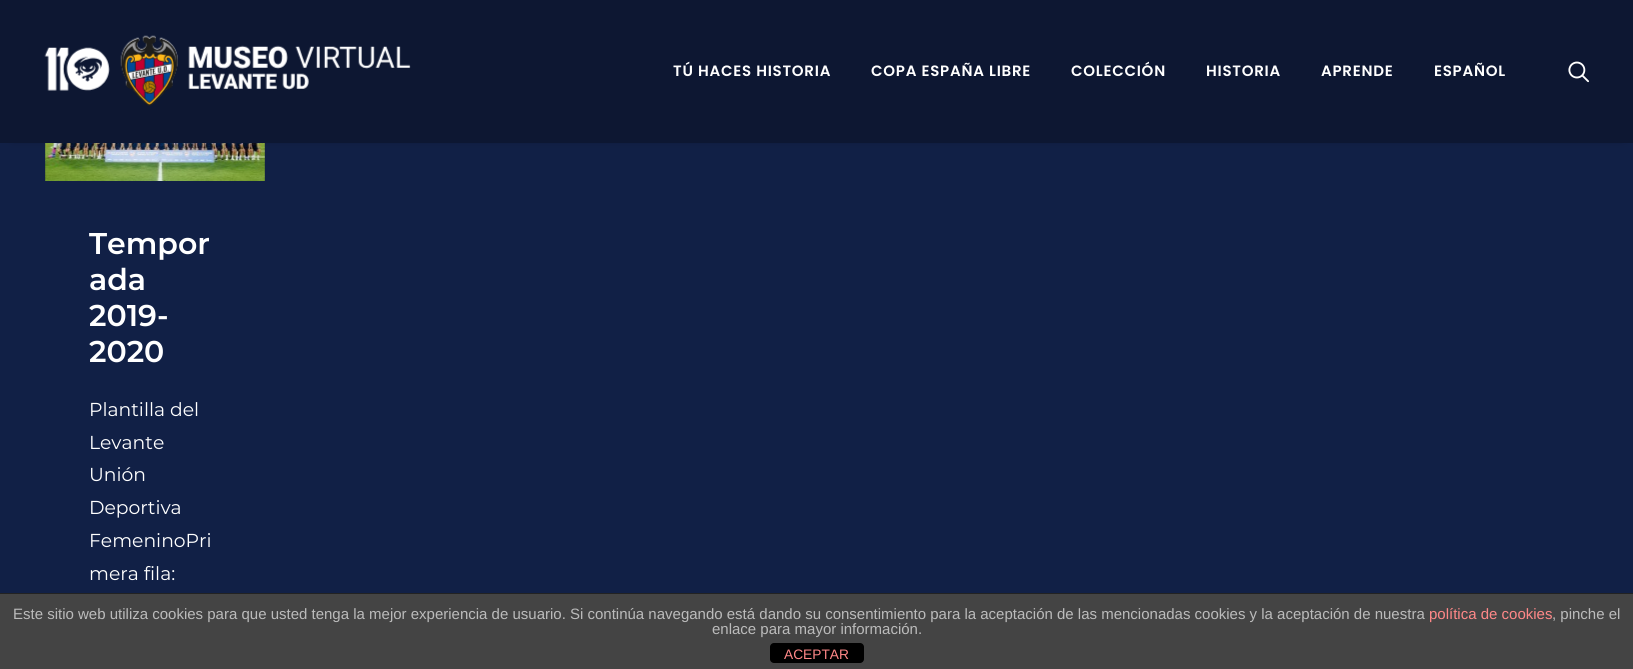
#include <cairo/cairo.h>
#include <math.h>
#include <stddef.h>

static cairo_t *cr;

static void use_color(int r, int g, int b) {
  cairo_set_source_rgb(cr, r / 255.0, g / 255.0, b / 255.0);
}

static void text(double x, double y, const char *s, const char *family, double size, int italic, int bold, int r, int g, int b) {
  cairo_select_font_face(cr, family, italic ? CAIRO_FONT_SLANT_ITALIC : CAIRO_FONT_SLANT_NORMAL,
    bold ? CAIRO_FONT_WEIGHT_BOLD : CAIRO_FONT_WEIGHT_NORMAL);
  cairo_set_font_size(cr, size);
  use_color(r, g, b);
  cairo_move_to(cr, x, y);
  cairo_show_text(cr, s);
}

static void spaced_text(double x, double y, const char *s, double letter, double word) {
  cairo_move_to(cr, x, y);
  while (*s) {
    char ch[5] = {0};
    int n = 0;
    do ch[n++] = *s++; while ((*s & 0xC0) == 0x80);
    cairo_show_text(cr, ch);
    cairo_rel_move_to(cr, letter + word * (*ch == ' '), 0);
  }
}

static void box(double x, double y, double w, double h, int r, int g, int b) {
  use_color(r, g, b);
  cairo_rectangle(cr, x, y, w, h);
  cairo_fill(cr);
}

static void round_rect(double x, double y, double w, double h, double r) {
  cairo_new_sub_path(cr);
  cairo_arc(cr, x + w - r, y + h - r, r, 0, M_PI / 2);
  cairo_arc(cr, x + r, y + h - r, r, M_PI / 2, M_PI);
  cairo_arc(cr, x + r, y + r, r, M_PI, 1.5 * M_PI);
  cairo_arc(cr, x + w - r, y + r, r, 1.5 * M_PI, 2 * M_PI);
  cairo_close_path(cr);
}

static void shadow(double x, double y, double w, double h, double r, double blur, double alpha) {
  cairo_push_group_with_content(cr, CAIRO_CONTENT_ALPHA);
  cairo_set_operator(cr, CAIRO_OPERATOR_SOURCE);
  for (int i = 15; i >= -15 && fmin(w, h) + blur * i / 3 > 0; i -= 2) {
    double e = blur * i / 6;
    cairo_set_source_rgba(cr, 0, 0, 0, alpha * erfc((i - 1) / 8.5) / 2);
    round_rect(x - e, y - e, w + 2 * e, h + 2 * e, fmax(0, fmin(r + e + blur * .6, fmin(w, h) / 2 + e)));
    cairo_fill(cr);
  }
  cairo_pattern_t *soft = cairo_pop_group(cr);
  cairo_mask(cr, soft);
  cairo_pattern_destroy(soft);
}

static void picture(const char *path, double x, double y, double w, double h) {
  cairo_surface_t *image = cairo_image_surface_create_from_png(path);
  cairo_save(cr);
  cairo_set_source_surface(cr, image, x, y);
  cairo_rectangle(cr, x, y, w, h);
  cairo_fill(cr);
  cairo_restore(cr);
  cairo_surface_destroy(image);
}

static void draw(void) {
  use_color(17, 32, 70);
  cairo_paint(cr);
  picture("img_03.png", 45, 143, 220, 38);
  use_color(0, 0, 0);
  shadow(13, 18, 1610, 117, 0, 6, 0.6);
  box(0, 0, 1633, 143, 13, 23, 50);
  picture("img_01.png", 44, 35, 367, 71);
  picture("img_02.png", 1568, 61, 21, 22);
  box(0, 594, 1633, 75, 68, 68, 68);
  box(0, 593, 1633, 1, 34, 34, 34);
  use_color(0, 0, 0);
  round_rect(770, 643, 94, 20, 4);
  cairo_fill(cr);
  cairo_select_font_face(cr, "Poppins SemiBold", CAIRO_FONT_SLANT_NORMAL, CAIRO_FONT_WEIGHT_NORMAL);
  cairo_set_font_size(cr, 15);
  use_color(255, 255, 255);
  spaced_text(673, 76, "TÚ HACES HISTORIA", 0.75, 0);
  spaced_text(871, 76, "COPA ESPAÑA LIBRE", 0.75, 0);
  spaced_text(1071, 76, "COLECCIÓN", 0.75, 0);
  spaced_text(1206, 76, "HISTORIA", 0.75, 0);
  spaced_text(1321, 76, "APRENDE", 0.75, 0);
  spaced_text(1434, 76, "ESPAÑOL", 0.75, 0);
  text(89, 254, "Tempor", "Montserrat SemiBold", 30, 0, 0, 255, 255, 255);
  text(89, 290, "ada", "Montserrat SemiBold", 30, 0, 0, 255, 255, 255);
  text(89, 326, "2019-", "Montserrat SemiBold", 30, 0, 0, 255, 255, 255);
  text(89, 362, "2020", "Montserrat SemiBold", 30, 0, 0, 255, 255, 255);
  text(89, 416, "Plantilla del", "Montserrat", 18.75, 0, 0, 255, 255, 255);
  text(89, 449, "Levante", "Montserrat", 18.75, 0, 0, 255, 255, 255);
  text(89, 481, "Unión", "Montserrat", 18.75, 0, 0, 255, 255, 255);
  text(89, 514, "Deportiva", "Montserrat", 18.75, 0, 0, 255, 255, 255);
  text(89, 547, "FemeninoPri", "Montserrat", 18.75, 0, 0, 255, 255, 255);
  text(89, 580, "mera fila:", "Montserrat", 18.75, 0, 0, 255, 255, 255);
  text(13, 619, "Este sitio web utiliza cookies para que usted tenga la mejor experiencia de usuario. Si continúa navegando está dando su consentimiento para la aceptación de las mencionadas cookies y la aceptación de nuestra", "Liberation Sans", 15, 0, 0, 187, 187, 187);
  text(1429, 619, "política de cookies", "Liberation Sans", 15, 0, 0, 255, 136, 136);
  text(1552, 619, ", pinche el", "Liberation Sans", 15, 0, 0, 187, 187, 187);
  text(712, 634, "enlace para mayor información.", "Liberation Sans", 15, 0, 0, 187, 187, 187);
  text(784, 659, "ACEPTAR", "Liberation Sans", 13.75, 0, 0, 255, 136, 136);
}

int main(void) {
  cairo_surface_t *surface = cairo_image_surface_create(CAIRO_FORMAT_RGB24, 1633, 669);
  cr = cairo_create(surface);
  cairo_font_options_t *options = cairo_font_options_create();
  cairo_font_options_set_hint_metrics(options, CAIRO_HINT_METRICS_OFF);
  cairo_font_options_set_hint_style(options, CAIRO_HINT_STYLE_NONE);
  cairo_set_font_options(cr, options);
  cairo_set_miter_limit(cr, 4);
  draw();
  cairo_surface_write_to_png(surface, "out.png");
  cairo_font_options_destroy(options);
  cairo_destroy(cr);
  cairo_surface_destroy(surface);
  return 0;
}
